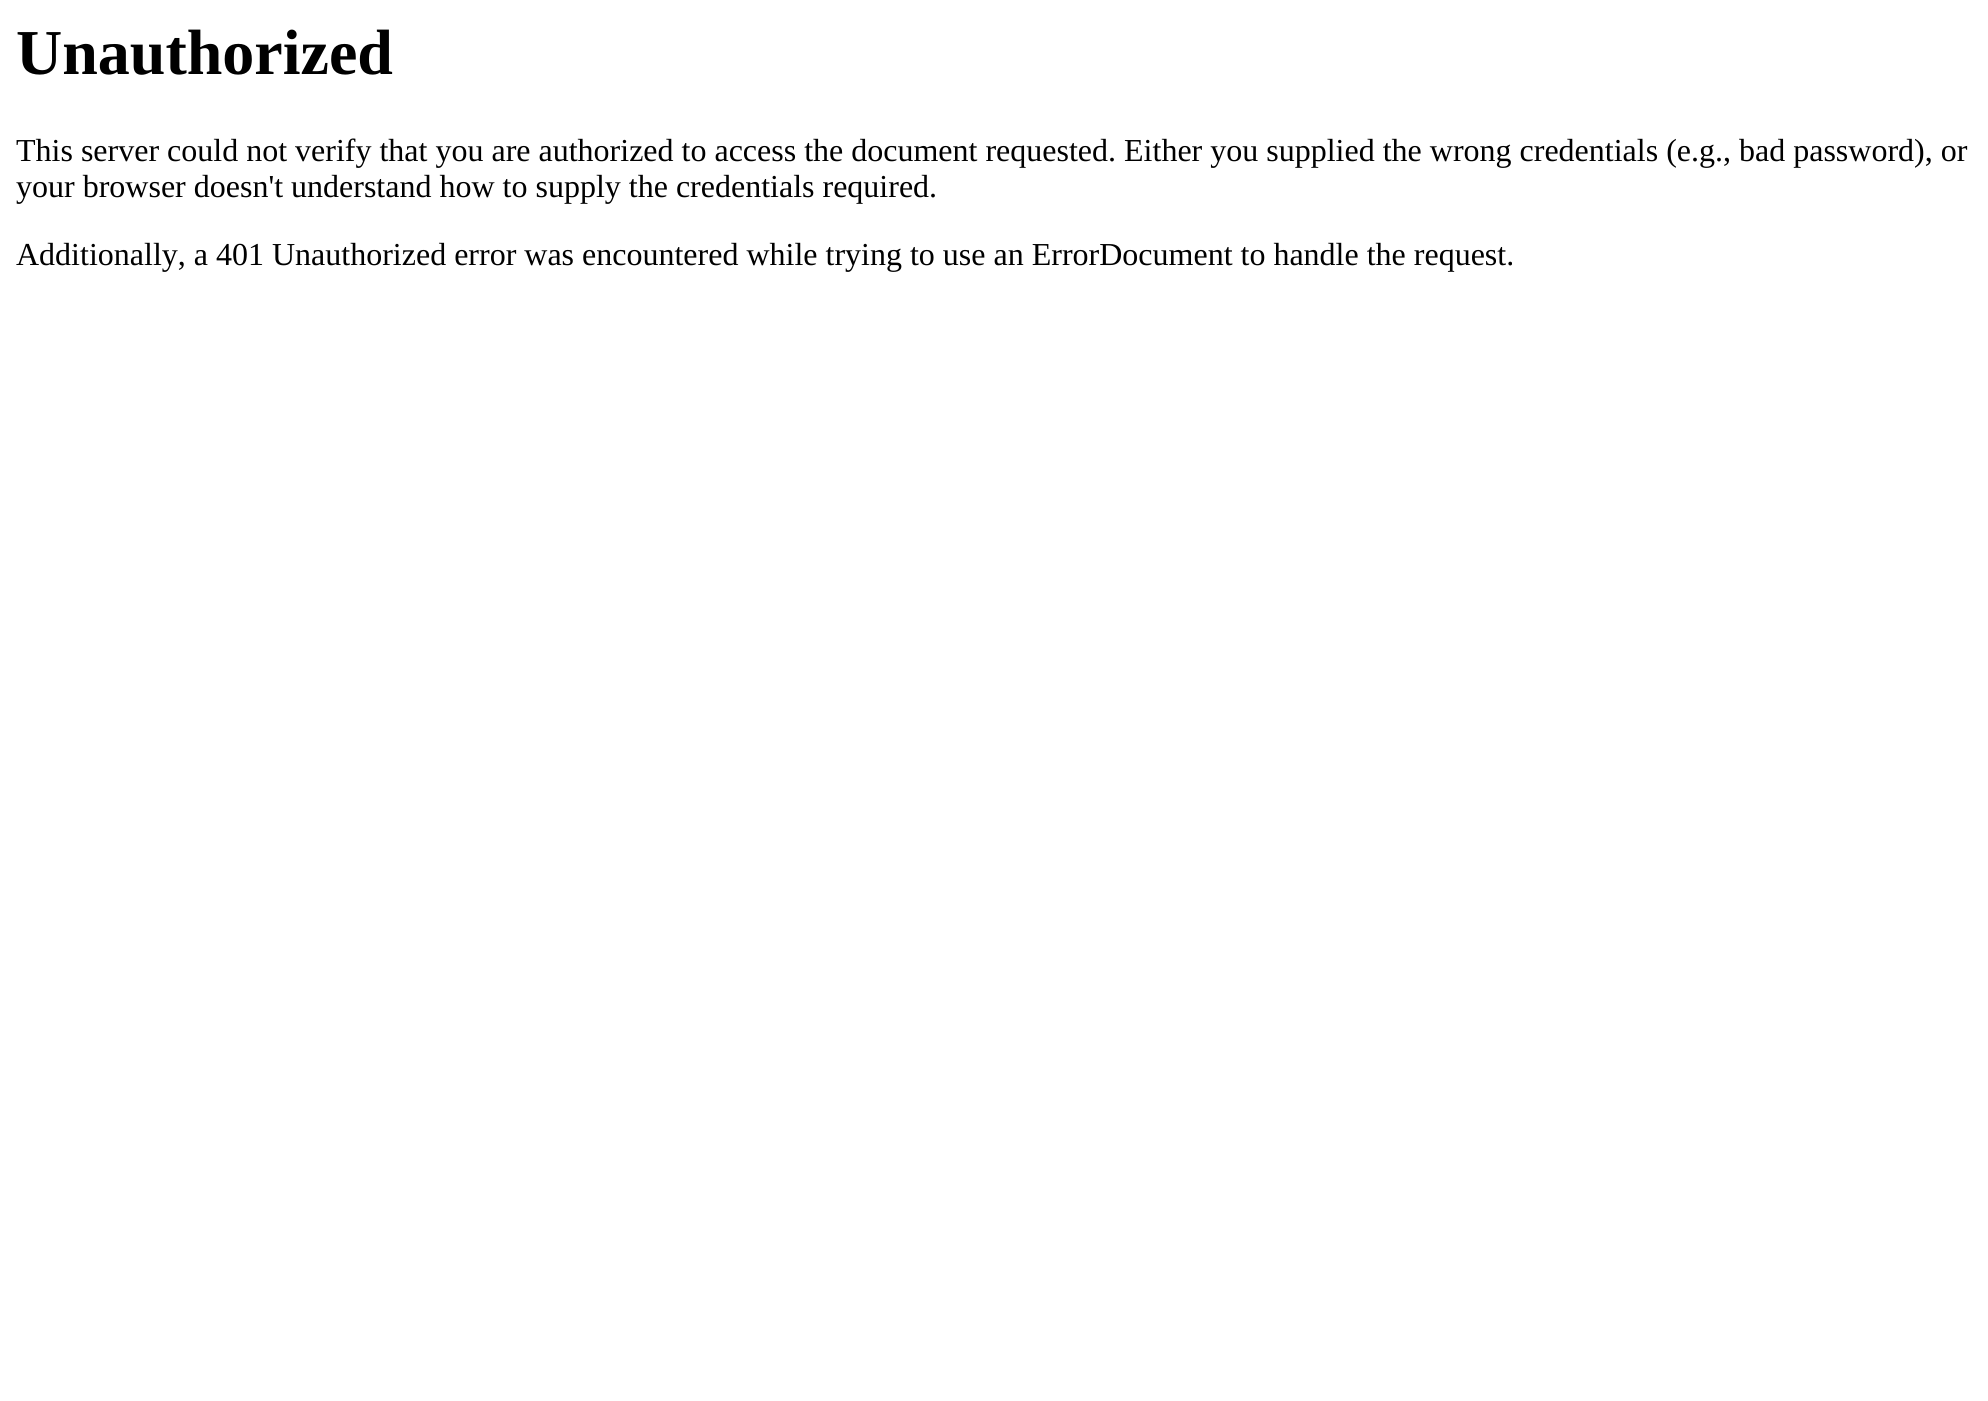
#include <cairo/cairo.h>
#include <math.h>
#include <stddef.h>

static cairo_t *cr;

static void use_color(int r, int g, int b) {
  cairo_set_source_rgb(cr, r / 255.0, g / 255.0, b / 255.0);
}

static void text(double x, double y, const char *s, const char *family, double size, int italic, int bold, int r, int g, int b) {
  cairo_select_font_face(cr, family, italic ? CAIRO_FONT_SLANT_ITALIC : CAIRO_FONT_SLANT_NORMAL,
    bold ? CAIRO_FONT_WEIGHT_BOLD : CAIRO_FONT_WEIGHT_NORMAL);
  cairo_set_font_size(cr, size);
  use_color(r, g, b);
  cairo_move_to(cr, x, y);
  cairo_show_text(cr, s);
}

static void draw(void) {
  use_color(255, 255, 255);
  cairo_paint(cr);
  text(16, 74, "Unauthorized", "Liberation Serif", 64, 0, 1, 0, 0, 0);
  text(16, 161, "This server could not verify that you are authorized to access the document requested. Either you supplied the wrong credentials (e.g., bad password), or", "Liberation Serif", 32, 0, 0, 0, 0, 0);
  text(16, 197, "your browser doesn't understand how to supply the credentials required.", "Liberation Serif", 32, 0, 0, 0, 0, 0);
  text(16, 265, "Additionally, a 401 Unauthorized error was encountered while trying to use an ErrorDocument to handle the request.", "Liberation Serif", 32, 0, 0, 0, 0, 0);
}

int main(void) {
  cairo_surface_t *surface = cairo_image_surface_create(CAIRO_FORMAT_RGB24, 1988, 1401);
  cr = cairo_create(surface);
  cairo_font_options_t *options = cairo_font_options_create();
  cairo_font_options_set_hint_metrics(options, CAIRO_HINT_METRICS_OFF);
  cairo_font_options_set_hint_style(options, CAIRO_HINT_STYLE_NONE);
  cairo_set_font_options(cr, options);
  cairo_set_miter_limit(cr, 4);
  draw();
  cairo_surface_write_to_png(surface, "out.png");
  cairo_font_options_destroy(options);
  cairo_destroy(cr);
  cairo_surface_destroy(surface);
  return 0;
}
